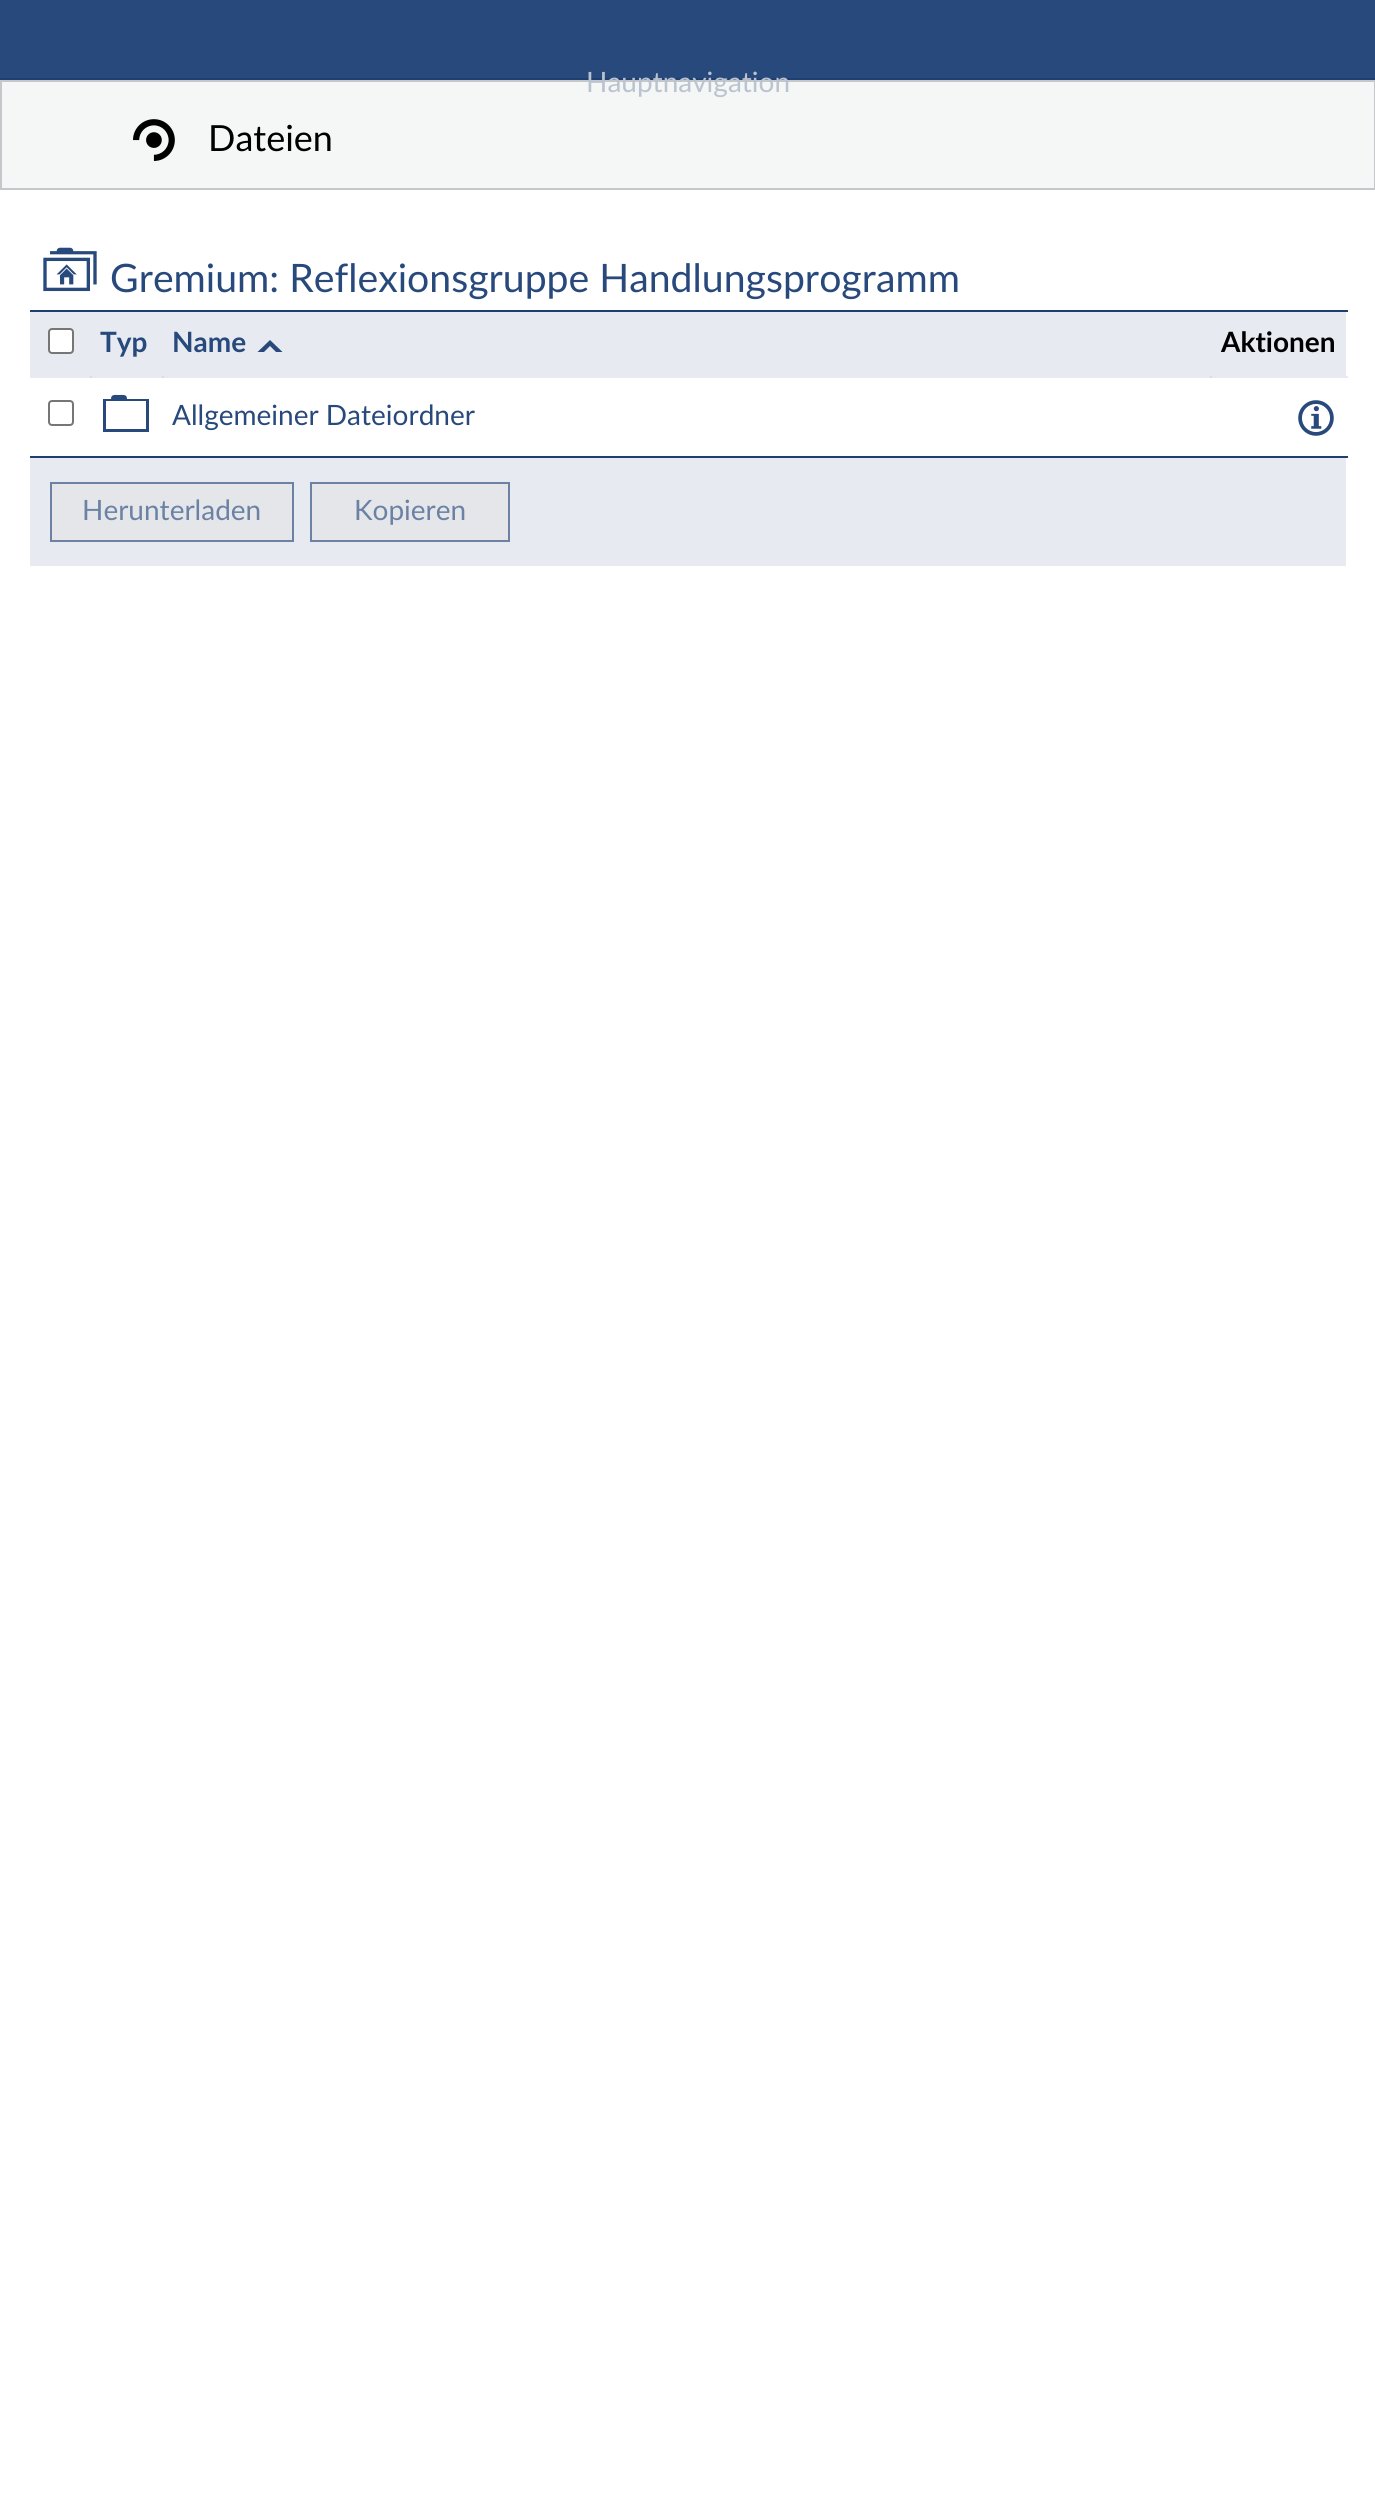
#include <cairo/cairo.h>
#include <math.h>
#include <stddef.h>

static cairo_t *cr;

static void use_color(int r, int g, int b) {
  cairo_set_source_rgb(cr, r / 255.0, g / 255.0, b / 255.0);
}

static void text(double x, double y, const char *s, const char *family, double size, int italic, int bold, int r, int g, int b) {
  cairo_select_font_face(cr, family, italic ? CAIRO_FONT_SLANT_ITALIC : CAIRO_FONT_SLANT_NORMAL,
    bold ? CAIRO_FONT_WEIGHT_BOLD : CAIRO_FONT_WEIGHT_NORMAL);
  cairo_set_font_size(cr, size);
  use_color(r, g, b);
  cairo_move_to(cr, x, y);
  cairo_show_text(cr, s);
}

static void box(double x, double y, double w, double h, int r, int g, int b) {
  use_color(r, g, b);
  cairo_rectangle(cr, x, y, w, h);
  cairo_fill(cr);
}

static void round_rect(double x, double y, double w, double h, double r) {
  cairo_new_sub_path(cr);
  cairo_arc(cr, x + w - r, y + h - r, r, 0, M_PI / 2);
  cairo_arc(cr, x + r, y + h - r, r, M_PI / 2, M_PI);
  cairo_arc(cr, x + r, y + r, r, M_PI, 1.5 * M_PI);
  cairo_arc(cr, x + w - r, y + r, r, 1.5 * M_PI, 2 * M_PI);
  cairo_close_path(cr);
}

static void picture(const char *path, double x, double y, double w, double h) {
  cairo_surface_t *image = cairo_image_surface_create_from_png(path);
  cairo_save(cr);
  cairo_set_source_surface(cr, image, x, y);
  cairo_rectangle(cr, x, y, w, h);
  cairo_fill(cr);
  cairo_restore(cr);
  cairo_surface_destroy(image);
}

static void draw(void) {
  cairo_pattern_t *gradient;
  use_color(255, 255, 255);
  cairo_paint(cr);
  box(90, 376, 1258, 2, 231, 235, 241);
  box(162, 376, 2, 2, 212, 219, 230);
  box(0, 0, 1375, 78, 40, 73, 124);
  box(0, 78, 1375, 2, 31, 63, 112);
  use_color(245, 246, 246);
  cairo_rectangle(cr, 1, 81, 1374, 108);
  cairo_fill_preserve(cr);
  use_color(197, 199, 202);
  cairo_stroke(cr);
  picture("img_01.png", 133, 119, 42, 42);
  gradient = cairo_pattern_create_radial(0, 0, 0, 0, 0, 1);
  cairo_pattern_set_matrix(gradient, &(cairo_matrix_t){1.0 / 28, 0, 0, 1.0 / 242, -1.0 * 1376 / 28, -1.0 * 452 / 242});
  cairo_pattern_add_color_stop_rgba(gradient, 0, 0.8, 0.8, 0.8, 1);
  cairo_pattern_add_color_stop_rgba(gradient, 1, 1, 1, 1, 1);
  cairo_set_source(cr, gradient);
  cairo_pattern_destroy(gradient);
  cairo_rectangle(cr, 1349, 362, 3, 180);
  cairo_fill(cr);
  gradient = cairo_pattern_create_radial(0, 0, 0, 0, 0, 1);
  cairo_pattern_set_matrix(gradient, &(cairo_matrix_t){1.0 / 28, 0, 0, 1.0 / 242, -1.0 * 0 / 28, -1.0 * 452 / 242});
  cairo_pattern_add_color_stop_rgba(gradient, 0, 0.8, 0.8, 0.8, 1);
  cairo_pattern_add_color_stop_rgba(gradient, 1, 1, 1, 1, 1);
  cairo_set_source(cr, gradient);
  cairo_pattern_destroy(gradient);
  cairo_rectangle(cr, 24, 362, 3, 180);
  cairo_fill(cr);
  gradient = cairo_pattern_create_linear(1296, 452, 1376, 452);
  cairo_pattern_add_color_stop_rgba(gradient, 0, 1, 1, 1, 0);
  cairo_pattern_add_color_stop_rgba(gradient, 0.7, 1, 1, 1, 1);
  cairo_set_source(cr, gradient);
  cairo_pattern_destroy(gradient);
  cairo_rectangle(cr, 1349, 362, 3, 180);
  cairo_fill(cr);
  gradient = cairo_pattern_create_linear(0, 452, 80, 452);
  cairo_pattern_add_color_stop_rgba(gradient, 0.3, 1, 1, 1, 1);
  cairo_pattern_add_color_stop_rgba(gradient, 1, 1, 1, 1, 0);
  cairo_set_source(cr, gradient);
  cairo_pattern_destroy(gradient);
  cairo_rectangle(cr, 24, 362, 3, 180);
  cairo_fill(cr);
  picture("img_02.png", 43, 247, 54, 45);
  box(30, 312, 1316, 64, 231, 235, 241);
  cairo_set_source_rgba(cr, 0.537, 0.604, 0.725, 0.2);
  cairo_rectangle(cr, 30, 376, 62, 2);
  cairo_fill(cr);
  use_color(255, 255, 255);
  round_rect(49, 329, 24, 24, 3);
  cairo_fill_preserve(cr);
  use_color(118, 118, 118);
  cairo_stroke(cr);
  use_color(40, 73, 124);
  cairo_new_path(cr);
  cairo_move_to(cr, 257.5, 352);
  cairo_line_to(cr, 264, 352);
  cairo_line_to(cr, 270, 346);
  cairo_line_to(cr, 276, 352);
  cairo_line_to(cr, 282.5, 352);
  cairo_line_to(cr, 270, 340);
  cairo_close_path(cr);
  cairo_fill(cr);
  box(30, 310, 1318, 2, 31, 63, 112);
  box(1210, 376, 2, 2, 212, 219, 230);
  round_rect(49, 401, 24, 24, 3);
  use_color(118, 118, 118);
  cairo_stroke(cr);
  use_color(40, 73, 124);
  cairo_new_path(cr);
  cairo_move_to(cr, 127, 399);
  cairo_curve_to(cr, 127, 394, 123, 395, 119, 395);
  cairo_curve_to(cr, 115, 395, 111, 394, 111, 399);
  cairo_line_to(cr, 103, 399);
  cairo_line_to(cr, 103, 432);
  cairo_line_to(cr, 149, 432);
  cairo_line_to(cr, 149, 399);
  cairo_close_path(cr);
  cairo_move_to(cr, 146, 429);
  cairo_line_to(cr, 106, 429);
  cairo_line_to(cr, 106, 401);
  cairo_line_to(cr, 146, 401);
  cairo_close_path(cr);
  cairo_fill(cr);
  picture("img_03.png", 1298, 400, 36, 36);
  box(30, 458, 1316, 108, 231, 235, 241);
  box(30, 456, 1318, 2, 31, 63, 112);
  use_color(228, 230, 233);
  cairo_rectangle(cr, 51, 483, 242, 58);
  cairo_fill_preserve(cr);
  use_color(107, 130, 165);
  cairo_stroke(cr);
  use_color(228, 230, 233);
  cairo_rectangle(cr, 311, 483, 198, 58);
  cairo_fill_preserve(cr);
  use_color(107, 130, 165);
  cairo_stroke(cr);
  text(586, 92, "Hauptnavigation", "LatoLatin", 28, 0, 0, 186, 195, 208);
  text(208, 151, "Dateien", "LatoLatin", 36, 0, 0, 0, 0, 0);
  text(110, 292, "Gremium: Reflexionsgruppe Handlungsprogramm", "LatoLatin", 39.2, 0, 0, 40, 73, 124);
  text(100, 352, "Typ", "LatoLatin", 28, 0, 1, 40, 73, 124);
  text(172, 352, "Name", "LatoLatin", 28, 0, 1, 40, 73, 124);
  text(1221, 352, "Aktionen", "LatoLatin", 28, 0, 1, 0, 0, 0);
  text(172, 425, "Allgemeiner Dateiordner", "LatoLatin", 28, 0, 0, 40, 73, 124);
  text(82, 520, "Herunterladen", "LatoLatin", 28, 0, 0, 107, 130, 165);
  text(354, 520, "Kopieren", "LatoLatin", 28, 0, 0, 107, 130, 165);
}

int main(void) {
  cairo_surface_t *surface = cairo_image_surface_create(CAIRO_FORMAT_RGB24, 1375, 2510);
  cr = cairo_create(surface);
  cairo_font_options_t *options = cairo_font_options_create();
  cairo_font_options_set_hint_metrics(options, CAIRO_HINT_METRICS_OFF);
  cairo_font_options_set_hint_style(options, CAIRO_HINT_STYLE_NONE);
  cairo_set_font_options(cr, options);
  cairo_set_miter_limit(cr, 4);
  draw();
  cairo_surface_write_to_png(surface, "out.png");
  cairo_font_options_destroy(options);
  cairo_destroy(cr);
  cairo_surface_destroy(surface);
  return 0;
}
